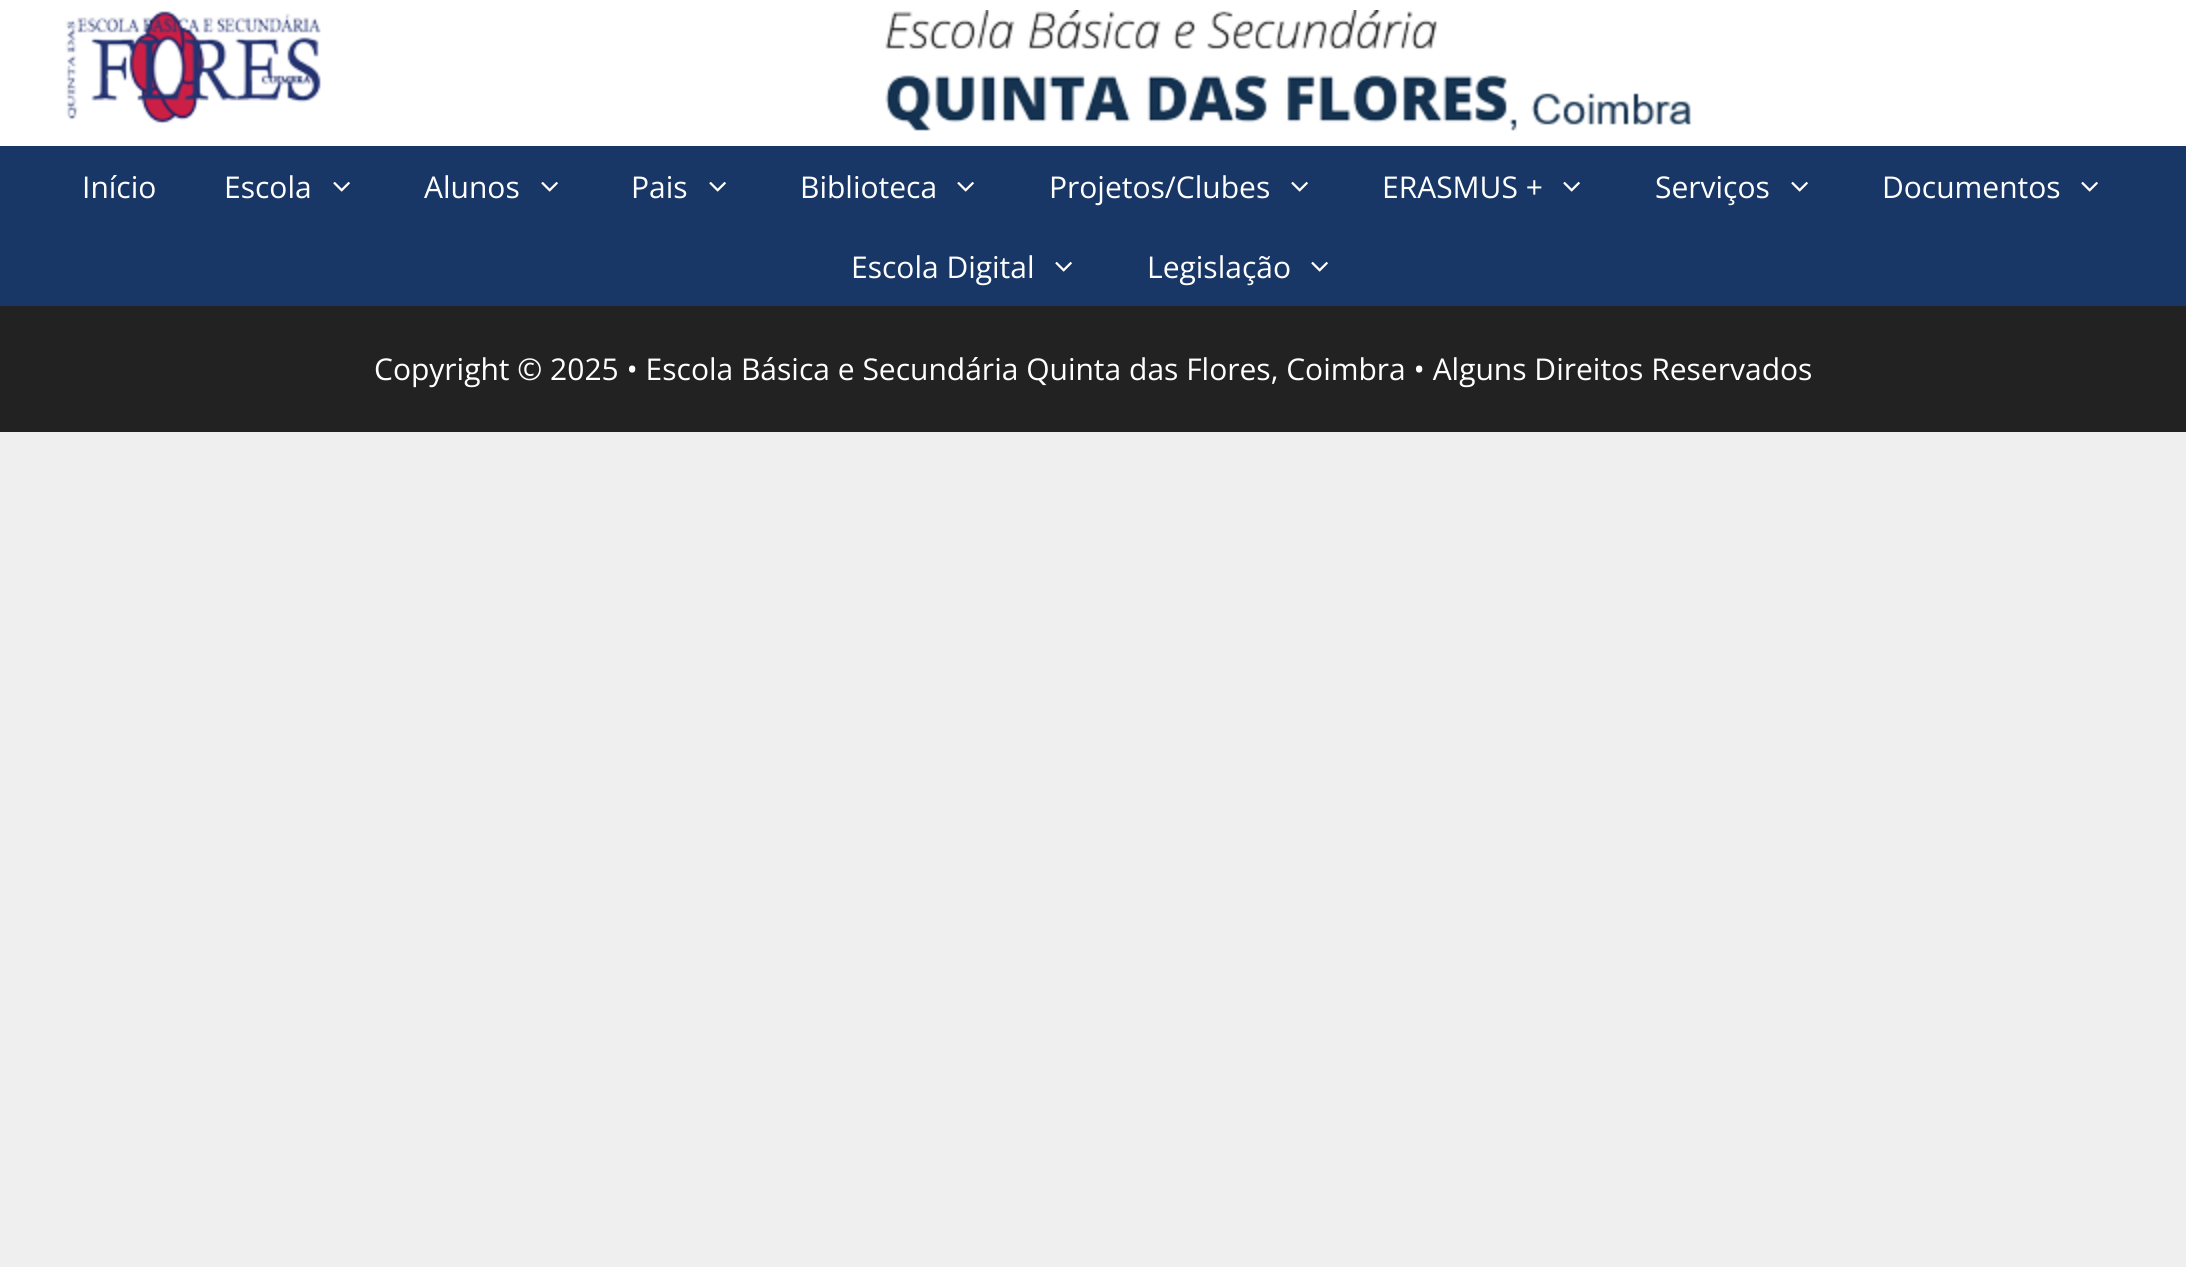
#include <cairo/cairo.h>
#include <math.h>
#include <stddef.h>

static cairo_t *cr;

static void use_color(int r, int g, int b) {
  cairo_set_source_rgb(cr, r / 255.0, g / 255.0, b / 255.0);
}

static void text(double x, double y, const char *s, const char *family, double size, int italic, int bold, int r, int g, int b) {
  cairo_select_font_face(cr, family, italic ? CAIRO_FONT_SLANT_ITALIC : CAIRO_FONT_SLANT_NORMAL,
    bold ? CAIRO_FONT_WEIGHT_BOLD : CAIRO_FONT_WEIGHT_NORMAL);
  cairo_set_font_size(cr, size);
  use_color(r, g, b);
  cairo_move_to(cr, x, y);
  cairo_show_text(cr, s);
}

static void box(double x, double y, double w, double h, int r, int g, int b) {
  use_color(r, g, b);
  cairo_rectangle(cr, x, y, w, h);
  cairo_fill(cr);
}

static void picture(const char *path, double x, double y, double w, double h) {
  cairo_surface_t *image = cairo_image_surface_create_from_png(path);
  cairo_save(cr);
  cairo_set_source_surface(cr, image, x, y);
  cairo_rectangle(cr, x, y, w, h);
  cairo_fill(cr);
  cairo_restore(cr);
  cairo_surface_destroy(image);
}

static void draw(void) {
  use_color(239, 239, 239);
  cairo_paint(cr);
  box(0, 0, 2186, 146, 255, 255, 255);
  picture("img_01.png", 65, 10, 1627, 121);
  box(0, 146, 2186, 160, 24, 55, 102);
  picture("img_02.png", 333, 181, 17, 11);
  picture("img_02.png", 541, 181, 17, 11);
  picture("img_02.png", 709, 181, 17, 11);
  picture("img_02.png", 957, 181, 17, 11);
  picture("img_02.png", 1291, 181, 17, 11);
  picture("img_02.png", 1563, 181, 17, 11);
  picture("img_02.png", 1791, 181, 17, 11);
  picture("img_02.png", 2081, 181, 17, 11);
  picture("img_02.png", 1055, 261, 17, 11);
  picture("img_02.png", 1311, 261, 17, 11);
  box(0, 306, 2186, 126, 34, 34, 34);
  text(82, 198, "Início", "Open Sans", 30, 0, 0, 255, 255, 255);
  text(224, 198, "Escola", "Open Sans", 30, 0, 0, 255, 255, 255);
  text(424, 198, "Alunos", "Open Sans", 30, 0, 0, 255, 255, 255);
  text(631, 198, "Pais", "Open Sans", 30, 0, 0, 255, 255, 255);
  text(800, 198, "Biblioteca", "Open Sans", 30, 0, 0, 255, 255, 255);
  text(1049, 198, "Projetos/Clubes", "Open Sans", 30, 0, 0, 255, 255, 255);
  text(1382, 198, "ERASMUS +", "Open Sans", 30, 0, 0, 255, 255, 255);
  text(1655, 198, "Serviços", "Open Sans", 30, 0, 0, 255, 255, 255);
  text(1882, 198, "Documentos", "Open Sans", 30, 0, 0, 255, 255, 255);
  text(851, 278, "Escola Digital", "Open Sans", 30, 0, 0, 255, 255, 255);
  text(1147, 278, "Legislação", "Open Sans", 30, 0, 0, 255, 255, 255);
  text(374, 380, "Copyright © 2025 • Escola Básica e Secundária Quinta das Flores, Coimbra • Alguns Direitos Reservados", "Open Sans", 30, 0, 0, 255, 255, 255);
}

int main(void) {
  cairo_surface_t *surface = cairo_image_surface_create(CAIRO_FORMAT_RGB24, 2186, 1267);
  cr = cairo_create(surface);
  cairo_font_options_t *options = cairo_font_options_create();
  cairo_font_options_set_hint_metrics(options, CAIRO_HINT_METRICS_OFF);
  cairo_font_options_set_hint_style(options, CAIRO_HINT_STYLE_NONE);
  cairo_set_font_options(cr, options);
  cairo_set_miter_limit(cr, 4);
  draw();
  cairo_surface_write_to_png(surface, "out.png");
  cairo_font_options_destroy(options);
  cairo_destroy(cr);
  cairo_surface_destroy(surface);
  return 0;
}
